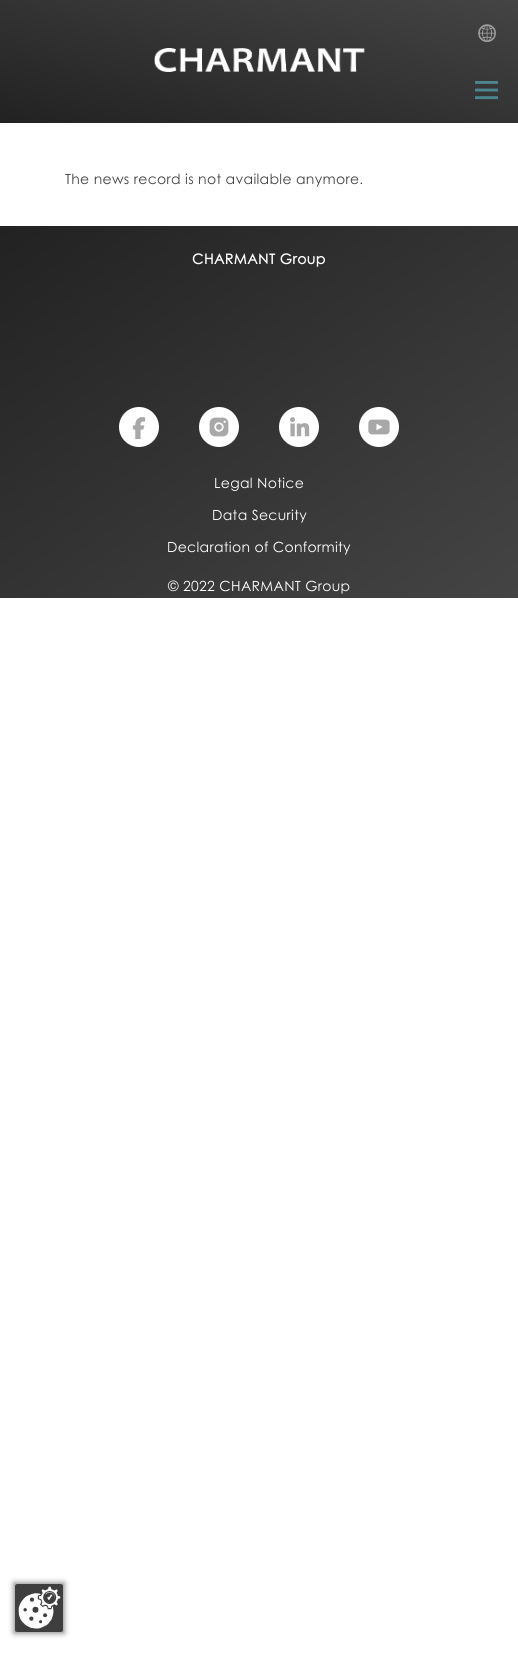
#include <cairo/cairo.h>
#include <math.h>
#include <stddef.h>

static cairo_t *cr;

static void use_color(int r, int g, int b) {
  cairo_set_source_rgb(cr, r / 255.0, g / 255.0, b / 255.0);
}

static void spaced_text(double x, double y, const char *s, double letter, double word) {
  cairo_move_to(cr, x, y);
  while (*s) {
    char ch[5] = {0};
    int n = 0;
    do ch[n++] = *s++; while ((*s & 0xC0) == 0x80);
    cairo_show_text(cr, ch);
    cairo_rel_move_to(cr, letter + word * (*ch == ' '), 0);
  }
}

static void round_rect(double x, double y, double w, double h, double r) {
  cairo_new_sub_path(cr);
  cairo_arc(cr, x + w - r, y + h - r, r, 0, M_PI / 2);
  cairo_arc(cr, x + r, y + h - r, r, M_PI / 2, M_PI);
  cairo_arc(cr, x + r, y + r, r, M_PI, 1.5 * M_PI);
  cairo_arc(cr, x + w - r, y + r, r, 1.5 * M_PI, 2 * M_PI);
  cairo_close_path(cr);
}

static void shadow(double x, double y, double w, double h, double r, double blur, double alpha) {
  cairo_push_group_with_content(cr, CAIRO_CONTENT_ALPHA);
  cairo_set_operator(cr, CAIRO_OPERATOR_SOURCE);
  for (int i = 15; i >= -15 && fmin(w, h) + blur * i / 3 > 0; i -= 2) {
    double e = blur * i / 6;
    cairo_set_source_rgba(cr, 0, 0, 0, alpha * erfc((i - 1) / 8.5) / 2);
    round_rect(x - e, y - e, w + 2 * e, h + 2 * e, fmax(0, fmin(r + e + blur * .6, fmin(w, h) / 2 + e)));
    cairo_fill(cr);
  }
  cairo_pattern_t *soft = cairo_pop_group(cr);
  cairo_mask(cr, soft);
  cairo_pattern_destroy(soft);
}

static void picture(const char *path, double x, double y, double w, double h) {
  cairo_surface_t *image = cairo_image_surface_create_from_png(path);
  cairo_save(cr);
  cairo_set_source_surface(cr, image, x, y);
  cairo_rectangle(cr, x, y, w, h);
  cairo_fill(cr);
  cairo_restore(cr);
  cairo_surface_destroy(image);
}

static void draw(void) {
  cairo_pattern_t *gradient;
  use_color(255, 255, 255);
  cairo_paint(cr);
  gradient = cairo_pattern_create_linear(231, 178, 287, -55);
  cairo_pattern_add_color_stop_rgba(gradient, 0, 0.133, 0.133, 0.133, 1);
  cairo_pattern_add_color_stop_rgba(gradient, 1, 0.267, 0.267, 0.267, 1);
  cairo_set_source(cr, gradient);
  cairo_pattern_destroy(gradient);
  cairo_rectangle(cr, 0, 0, 518, 123);
  cairo_fill(cr);
  picture("img_01.png", 478, 24, 18, 18);
  picture("img_02.png", 154, 48, 211, 24);
  picture("img_03.png", 475, 81, 23, 19);
  gradient = cairo_pattern_create_linear(83, 167, 435, 657);
  cairo_pattern_add_color_stop_rgba(gradient, 0, 0.133, 0.133, 0.133, 1);
  cairo_pattern_add_color_stop_rgba(gradient, 1, 0.267, 0.267, 0.267, 1);
  cairo_set_source(cr, gradient);
  cairo_pattern_destroy(gradient);
  cairo_rectangle(cr, 0, 226, 518, 372);
  cairo_fill(cr);
  picture("img_04.png", 119, 407, 40, 40);
  picture("img_05.png", 199, 407, 40, 40);
  picture("img_06.png", 279, 407, 40, 40);
  picture("img_07.png", 359, 407, 40, 40);
  use_color(0, 0, 0);
  shadow(14, 1583, 50, 50, 0, 3, 0.5);
  picture("img_08.png", 15, 1584, 48, 48);
  cairo_select_font_face(cr, "Century Gothic", CAIRO_FONT_SLANT_NORMAL, CAIRO_FONT_WEIGHT_NORMAL);
  cairo_set_font_size(cr, 14);
  use_color(68, 68, 68);
  spaced_text(65, 184, "The news record is not available anymore.", 0.3, 0);
  cairo_select_font_face(cr, "Century Gothic", CAIRO_FONT_SLANT_NORMAL, CAIRO_FONT_WEIGHT_BOLD);
  use_color(255, 255, 255);
  spaced_text(192, 264, "CHARMANT Group", 0.5, 0);
  cairo_select_font_face(cr, "Century Gothic", CAIRO_FONT_SLANT_NORMAL, CAIRO_FONT_WEIGHT_NORMAL);
  spaced_text(214, 488, "Legal Notice", 0.3, 0);
  spaced_text(212, 520, "Data Security", 0.3, 0);
  spaced_text(167, 552, "Declaration of Conformity", 0.3, 0);
  spaced_text(168, 591, "© 2022 CHARMANT Group", 0.3, 0);
}

int main(void) {
  cairo_surface_t *surface = cairo_image_surface_create(CAIRO_FORMAT_RGB24, 518, 1672);
  cr = cairo_create(surface);
  cairo_font_options_t *options = cairo_font_options_create();
  cairo_font_options_set_hint_metrics(options, CAIRO_HINT_METRICS_OFF);
  cairo_font_options_set_hint_style(options, CAIRO_HINT_STYLE_NONE);
  cairo_set_font_options(cr, options);
  cairo_set_miter_limit(cr, 4);
  draw();
  cairo_surface_write_to_png(surface, "out.png");
  cairo_font_options_destroy(options);
  cairo_destroy(cr);
  cairo_surface_destroy(surface);
  return 0;
}
